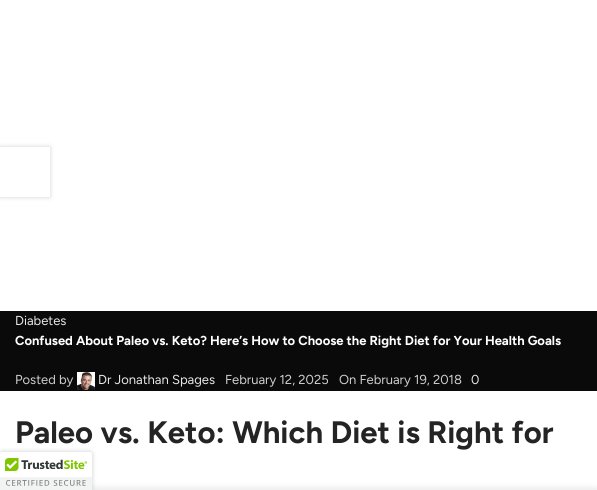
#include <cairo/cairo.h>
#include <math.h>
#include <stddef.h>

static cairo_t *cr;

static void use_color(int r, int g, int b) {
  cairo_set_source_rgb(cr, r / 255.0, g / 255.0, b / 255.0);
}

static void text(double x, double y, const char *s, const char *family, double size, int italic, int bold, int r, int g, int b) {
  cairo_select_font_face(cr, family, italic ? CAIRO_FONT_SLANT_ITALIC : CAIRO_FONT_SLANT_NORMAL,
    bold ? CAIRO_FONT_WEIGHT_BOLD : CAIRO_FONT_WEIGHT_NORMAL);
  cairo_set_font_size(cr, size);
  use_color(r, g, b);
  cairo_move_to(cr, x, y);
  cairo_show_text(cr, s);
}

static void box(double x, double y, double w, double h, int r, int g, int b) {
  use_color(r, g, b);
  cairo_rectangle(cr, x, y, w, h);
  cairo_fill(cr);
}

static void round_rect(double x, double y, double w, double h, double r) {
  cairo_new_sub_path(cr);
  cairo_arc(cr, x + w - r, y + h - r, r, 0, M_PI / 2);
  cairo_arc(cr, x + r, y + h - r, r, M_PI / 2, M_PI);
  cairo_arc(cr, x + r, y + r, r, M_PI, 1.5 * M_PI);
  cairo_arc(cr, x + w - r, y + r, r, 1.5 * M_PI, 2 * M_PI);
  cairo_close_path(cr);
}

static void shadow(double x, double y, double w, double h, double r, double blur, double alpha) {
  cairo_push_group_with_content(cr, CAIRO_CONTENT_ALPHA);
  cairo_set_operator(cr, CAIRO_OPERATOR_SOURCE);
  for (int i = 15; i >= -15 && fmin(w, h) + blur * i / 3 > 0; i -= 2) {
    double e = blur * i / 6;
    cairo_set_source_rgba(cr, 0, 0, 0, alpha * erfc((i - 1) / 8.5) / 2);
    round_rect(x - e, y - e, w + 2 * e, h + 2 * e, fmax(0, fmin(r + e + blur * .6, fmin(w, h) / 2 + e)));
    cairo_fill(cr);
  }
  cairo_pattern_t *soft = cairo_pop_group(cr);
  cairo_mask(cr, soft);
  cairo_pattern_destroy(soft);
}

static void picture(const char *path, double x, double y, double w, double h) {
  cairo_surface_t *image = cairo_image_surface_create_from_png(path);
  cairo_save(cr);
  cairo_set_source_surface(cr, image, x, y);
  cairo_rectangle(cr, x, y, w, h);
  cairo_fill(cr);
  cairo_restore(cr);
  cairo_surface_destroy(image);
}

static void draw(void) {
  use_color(255, 255, 255);
  cairo_paint(cr);
  cairo_save(cr);
  cairo_set_fill_rule(cr, CAIRO_FILL_RULE_EVEN_ODD);
  cairo_new_path(cr);
  cairo_move_to(cr, 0, 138);
  cairo_line_to(cr, 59, 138);
  cairo_line_to(cr, 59, 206);
  cairo_line_to(cr, 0, 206);
  cairo_close_path(cr);
  cairo_move_to(cr, 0, 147);
  cairo_line_to(cr, 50, 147);
  cairo_line_to(cr, 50, 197);
  cairo_line_to(cr, 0, 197);
  cairo_close_path(cr);
  cairo_clip(cr);
  use_color(0, 0, 0);
  shadow(0, 147, 50, 50, 0, 2.5, 0.17);
  cairo_restore(cr);
  box(0, 311, 597, 80, 10, 10, 10);
  picture("img_01.png", 77, 372, 18, 18);
  use_color(0, 0, 0);
  shadow(0, 452, 92, 38, 2, 2.5, 0.2);
  shadow(0, 490, 597, 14, 0, 4.5, 0.14);
  use_color(255, 255, 255);
  cairo_new_path(cr);
  cairo_move_to(cr, 0, 452);
  cairo_line_to(cr, 90, 452);
  cairo_curve_to(cr, 91, 452, 92, 453, 92, 454);
  cairo_line_to(cr, 92, 490);
  cairo_line_to(cr, 0, 490);
  cairo_close_path(cr);
  cairo_fill(cr);
  picture("img_02.png", 0, 452, 92, 38);
  text(15, 325, "Diabetes", "Figtree", 13, 0, 0, 231, 231, 231);
  text(15, 345, "Confused About Paleo vs. Keto? Here’s How to Choose the Right Diet for Your Health Goals", "Figtree", 13, 0, 1, 255, 255, 255);
  text(15, 384, "Posted by", "Figtree", 13, 0, 0, 206, 206, 206);
  text(98, 384, "Dr Jonathan Spages", "Figtree", 13, 0, 0, 231, 231, 231);
  text(225, 384, "February 12, 2025", "Figtree", 13, 0, 0, 206, 206, 206);
  text(339, 384, "On February 19, 2018", "Figtree", 13, 0, 0, 206, 206, 206);
  text(471, 384, "0", "Figtree", 13, 0, 0, 231, 231, 231);
  text(15, 443, "Paleo vs. Keto: Which Diet is Right for", "Figtree", 31, 0, 1, 36, 36, 36);
}

int main(void) {
  cairo_surface_t *surface = cairo_image_surface_create(CAIRO_FORMAT_RGB24, 597, 490);
  cr = cairo_create(surface);
  cairo_font_options_t *options = cairo_font_options_create();
  cairo_font_options_set_hint_metrics(options, CAIRO_HINT_METRICS_OFF);
  cairo_font_options_set_hint_style(options, CAIRO_HINT_STYLE_NONE);
  cairo_set_font_options(cr, options);
  cairo_set_miter_limit(cr, 4);
  draw();
  cairo_surface_write_to_png(surface, "out.png");
  cairo_font_options_destroy(options);
  cairo_destroy(cr);
  cairo_surface_destroy(surface);
  return 0;
}
